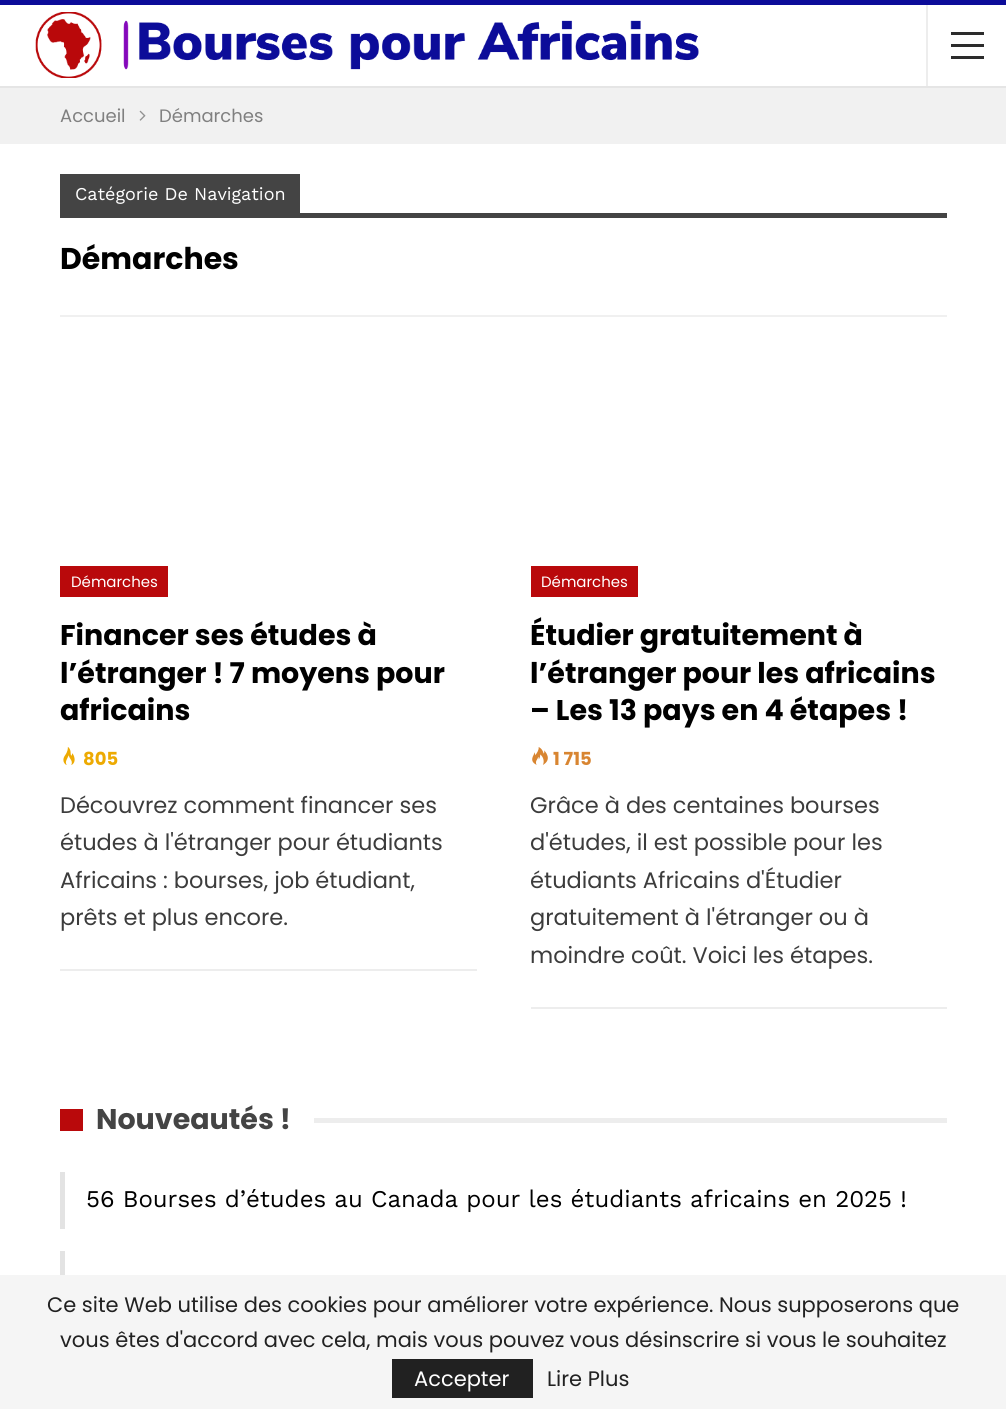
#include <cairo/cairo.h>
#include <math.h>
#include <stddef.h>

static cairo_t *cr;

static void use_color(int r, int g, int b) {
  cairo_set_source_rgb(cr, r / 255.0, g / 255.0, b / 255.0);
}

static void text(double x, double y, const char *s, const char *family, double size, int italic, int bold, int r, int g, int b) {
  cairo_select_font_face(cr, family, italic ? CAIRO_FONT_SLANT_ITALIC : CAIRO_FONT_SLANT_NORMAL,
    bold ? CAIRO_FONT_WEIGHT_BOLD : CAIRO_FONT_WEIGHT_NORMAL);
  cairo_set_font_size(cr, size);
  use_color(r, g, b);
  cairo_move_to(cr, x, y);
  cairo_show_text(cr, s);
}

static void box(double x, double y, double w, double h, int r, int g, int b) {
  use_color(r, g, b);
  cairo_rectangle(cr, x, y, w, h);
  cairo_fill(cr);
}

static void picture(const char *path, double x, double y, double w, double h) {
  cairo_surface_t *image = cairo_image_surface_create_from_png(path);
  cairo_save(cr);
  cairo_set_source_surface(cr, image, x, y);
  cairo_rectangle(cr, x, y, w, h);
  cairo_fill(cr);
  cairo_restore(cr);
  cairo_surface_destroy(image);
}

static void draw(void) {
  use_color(12, 12, 153);
  cairo_paint(cr);
  box(0, 5, 1006, 1270, 255, 255, 255);
  box(0, 86, 1006, 2, 229, 229, 229);
  picture("img_01.png", 35, 12, 664, 66);
  box(926, 5, 2, 81, 237, 237, 237);
  box(951, 44, 33, 3, 44, 44, 44);
  box(951, 32, 33, 3, 44, 44, 44);
  box(951, 56, 33, 3, 44, 44, 44);
  box(0, 88, 1006, 56, 241, 241, 241);
  picture("img_02.png", 139, 110, 7, 11);
  box(60, 315, 887, 2, 240, 240, 240);
  box(60, 174, 240, 39, 68, 68, 68);
  box(60, 213, 887, 5, 68, 68, 68);
  box(60, 566, 108, 31, 185, 9, 11);
  picture("img_03.png", 63, 747, 12, 18);
  box(60, 969, 417, 2, 237, 237, 237);
  box(531, 566, 107, 31, 185, 9, 11);
  picture("img_04.png", 532, 747, 16, 18);
  box(531, 1007, 416, 2, 237, 237, 237);
  box(60, 1109, 23, 22, 185, 9, 11);
  box(314, 1118, 633, 5, 237, 237, 237);
  box(60, 1172, 5, 57, 227, 227, 227);
  box(60, 1251, 5, 24, 227, 227, 227);
  box(0, 1275, 1006, 134, 245, 245, 245);
  box(392, 1359, 141, 39, 33, 33, 33);
  text(60, 122, "Accueil", "Poppins", 18, 0, 0, 128, 128, 128);
  text(159, 122, "Démarches", "Poppins", 18, 0, 0, 128, 128, 128);
  text(75, 200, "Catégorie De Navigation", "Work Sans", 18, 0, 0, 255, 255, 255);
  text(60, 269, "Démarches", "Poppins", 30, 0, 1, 0, 0, 0);
  text(71, 587, "Démarches", "Poppins", 15, 0, 0, 255, 255, 255);
  text(60, 645, "Financer ses études à", "Poppins", 28.5, 0, 1, 0, 0, 0);
  text(60, 683, "l’étranger ! 7 moyens pour", "Poppins", 28.5, 0, 1, 0, 0, 0);
  text(60, 720, "africains", "Poppins", 28.5, 0, 1, 0, 0, 0);
  text(83, 765, "805", "Poppins", 18, 0, 1, 237, 170, 2);
  text(60, 813, "Découvrez comment financer ses", "Poppins", 22.5, 0, 0, 60, 60, 60);
  text(60, 850, "études à l'étranger pour étudiants", "Poppins", 22.5, 0, 0, 60, 60, 60);
  text(60, 888, "Africains : bourses, job étudiant,", "Poppins", 22.5, 0, 0, 60, 60, 60);
  text(60, 925, "prêts et plus encore.", "Poppins", 22.5, 0, 0, 60, 60, 60);
  text(541, 587, "Démarches", "Poppins", 15, 0, 0, 255, 255, 255);
  text(530, 645, "Étudier gratuitement à", "Poppins", 28.5, 0, 1, 0, 0, 0);
  text(530, 683, "l’étranger pour les africains", "Poppins", 28.5, 0, 1, 0, 0, 0);
  text(530, 720, "– Les 13 pays en 4 étapes !", "Poppins", 28.5, 0, 1, 0, 0, 0);
  text(553, 765, "1 715", "Poppins", 18, 0, 1, 216, 133, 49);
  text(530, 813, "Grâce à des centaines bourses", "Poppins", 22.5, 0, 0, 60, 60, 60);
  text(530, 850, "d'études, il est possible pour les", "Poppins", 22.5, 0, 0, 60, 60, 60);
  text(530, 888, "étudiants Africains d'Étudier", "Poppins", 22.5, 0, 0, 60, 60, 60);
  text(530, 925, "gratuitement à l'étranger ou à", "Poppins", 22.5, 0, 0, 60, 60, 60);
  text(530, 963, "moindre coût. Voici les étapes.", "Poppins", 22.5, 0, 0, 60, 60, 60);
  text(96, 1129, "Nouveautés !", "Poppins", 28.5, 0, 1, 68, 68, 68);
  text(86, 1207, "56 Bourses d’études au Canada pour les étudiants africains en 2025 !", "Work Sans", 24, 0, 0, 0, 0, 0);
  text(47, 1312, "Ce site Web utilise des cookies pour améliorer votre expérience. Nous supposerons que", "Poppins", 21, 0, 0, 33, 33, 33);
  text(60, 1347, "vous êtes d'accord avec cela, mais vous pouvez vous désinscrire si vous le souhaitez", "Poppins", 21, 0, 0, 33, 33, 33);
  text(414, 1386, "Accepter", "Poppins", 21, 0, 0, 255, 255, 255);
  text(547, 1386, "Lire Plus", "Poppins", 21, 0, 0, 33, 33, 33);
}

int main(void) {
  cairo_surface_t *surface = cairo_image_surface_create(CAIRO_FORMAT_RGB24, 1006, 1409);
  cr = cairo_create(surface);
  cairo_font_options_t *options = cairo_font_options_create();
  cairo_font_options_set_hint_metrics(options, CAIRO_HINT_METRICS_OFF);
  cairo_font_options_set_hint_style(options, CAIRO_HINT_STYLE_NONE);
  cairo_set_font_options(cr, options);
  cairo_set_miter_limit(cr, 4);
  draw();
  cairo_surface_write_to_png(surface, "out.png");
  cairo_font_options_destroy(options);
  cairo_destroy(cr);
  cairo_surface_destroy(surface);
  return 0;
}
